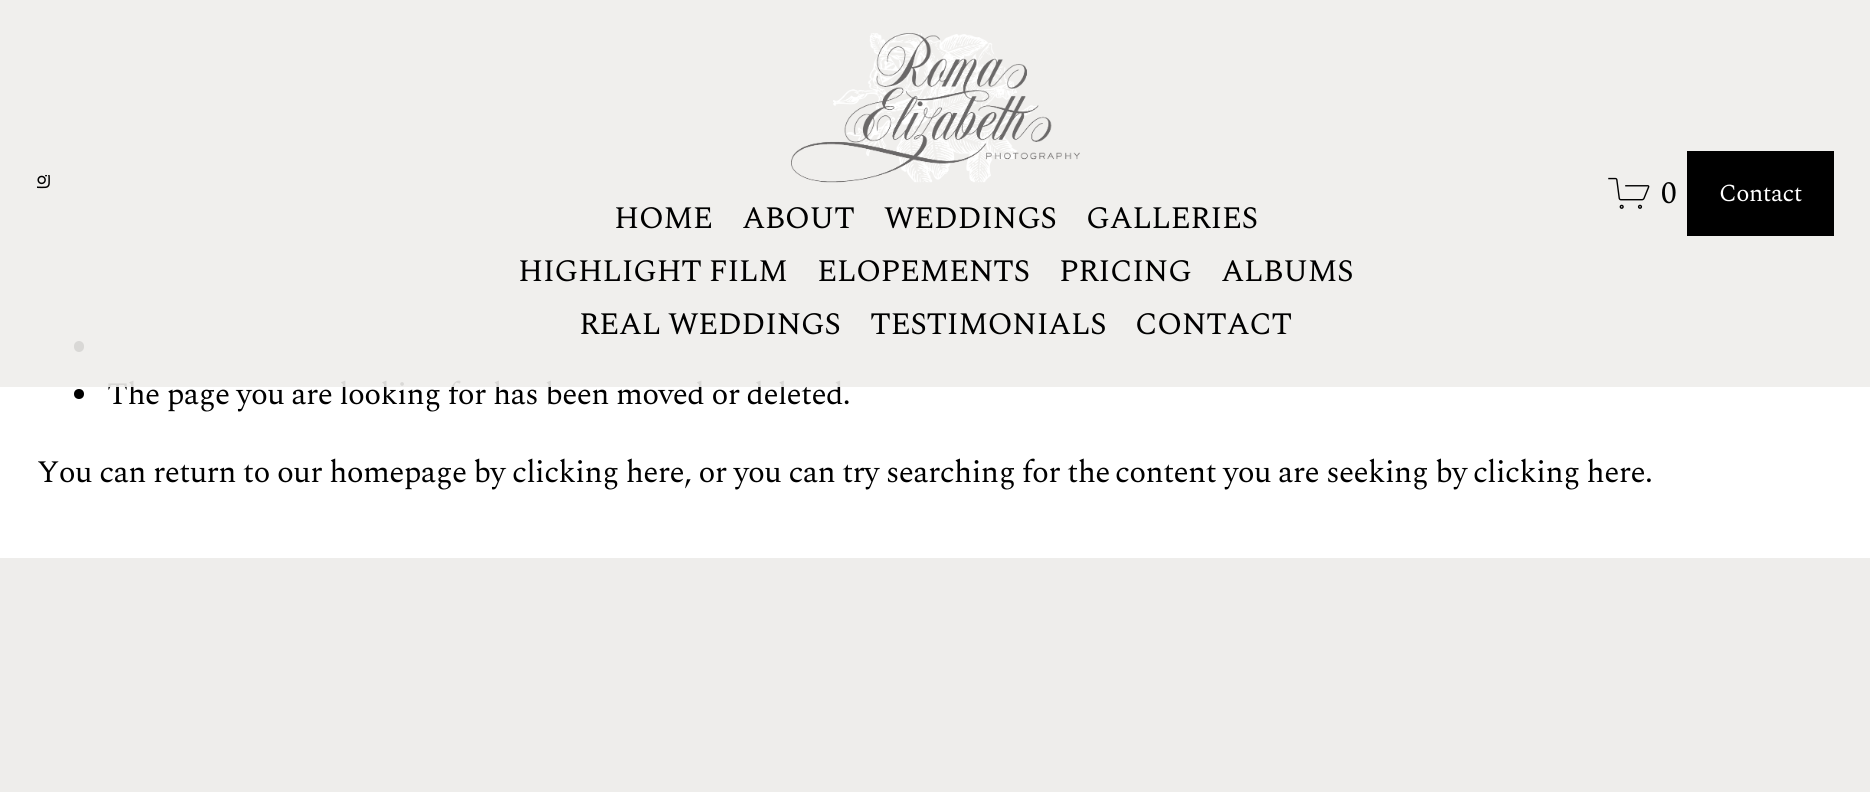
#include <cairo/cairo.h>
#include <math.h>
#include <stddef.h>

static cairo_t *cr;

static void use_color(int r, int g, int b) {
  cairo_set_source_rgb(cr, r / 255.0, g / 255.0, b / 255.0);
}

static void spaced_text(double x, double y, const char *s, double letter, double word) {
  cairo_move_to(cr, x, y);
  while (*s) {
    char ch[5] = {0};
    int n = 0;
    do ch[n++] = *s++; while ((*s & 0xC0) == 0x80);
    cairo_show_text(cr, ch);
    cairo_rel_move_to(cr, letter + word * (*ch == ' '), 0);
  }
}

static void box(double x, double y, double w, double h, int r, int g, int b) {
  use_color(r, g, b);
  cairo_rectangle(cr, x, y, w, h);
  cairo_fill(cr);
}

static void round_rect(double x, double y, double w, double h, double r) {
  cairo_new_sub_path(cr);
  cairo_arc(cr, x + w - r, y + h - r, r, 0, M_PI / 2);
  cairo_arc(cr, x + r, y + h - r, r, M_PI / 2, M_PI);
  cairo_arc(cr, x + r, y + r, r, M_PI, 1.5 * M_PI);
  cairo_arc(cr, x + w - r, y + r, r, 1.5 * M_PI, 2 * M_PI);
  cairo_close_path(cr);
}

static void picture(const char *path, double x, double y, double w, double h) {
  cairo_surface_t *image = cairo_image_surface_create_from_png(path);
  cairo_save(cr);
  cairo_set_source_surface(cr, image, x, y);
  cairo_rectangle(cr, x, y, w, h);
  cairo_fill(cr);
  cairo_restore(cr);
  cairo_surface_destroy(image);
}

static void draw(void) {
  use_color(255, 255, 255);
  cairo_paint(cr);
  use_color(0, 0, 0);
  round_rect(74, 341, 10, 11, 5);
  cairo_fill(cr);
  cairo_arc(cr, 79, 394, 5, 0, 2 * M_PI);
  cairo_fill(cr);
  box(0, 558, 1870, 234, 238, 237, 235);
  cairo_select_font_face(cr, "Spectral", CAIRO_FONT_SLANT_NORMAL, CAIRO_FONT_WEIGHT_NORMAL);
  cairo_set_font_size(cr, 31.25);
  use_color(0, 0, 0);
  spaced_text(107, 404, "The page you are looking for has been moved or deleted.", -0.62, 0);
  cairo_set_source_rgba(cr, 0.933, 0.929, 0.922, 0.91);
  cairo_rectangle(cr, 0, 0, 1870, 387);
  cairo_fill(cr);
  box(1687, 151, 147, 85, 0, 0, 0);
  cairo_set_font_size(cr, 24.5);
  use_color(255, 255, 255);
  spaced_text(1719, 201, "Contact", -0.5, 0);
  cairo_set_font_size(cr, 31.25);
  use_color(0, 0, 0);
  spaced_text(1661, 203, "0", -0.62, 0);
  picture("img_02.png", 1608, 177, 42, 32);
  spaced_text(1086, 228, "GALLERIES", -0.62, 0);
  picture("img_01.png", 37, 175, 13, 14);
  spaced_text(1135, 334, "CONTACT", -0.62, 0);
  spaced_text(870, 334, "TESTIMONIALS", -0.62, 0);
  spaced_text(579, 334, "REAL WEDDINGS", -0.62, 0);
  spaced_text(1221, 281, "ALBUMS", -0.62, 0);
  spaced_text(1059, 281, "PRICING", -0.62, 0);
  spaced_text(817, 281, "ELOPEMENTS", -0.62, 0);
  spaced_text(518, 281, "HIGHLIGHT FILM", -0.62, 0);
  spaced_text(884, 228, "WEDDINGS", -0.62, 0);
  spaced_text(742, 228, "ABOUT", -0.62, 0);
  spaced_text(614, 228, "HOME", -0.62, 0);
  picture("img_03.png", 791, 33, 289, 150);
  spaced_text(37, 482, "You can return to our homepage by clicking here, or you can try searching for the", -0.62, 0);
  spaced_text(1115, 482, "content you are seeking by", -0.62, 0);
  spaced_text(1473, 482, "clicking here.", -0.62, 0);
}

int main(void) {
  cairo_surface_t *surface = cairo_image_surface_create(CAIRO_FORMAT_RGB24, 1870, 792);
  cr = cairo_create(surface);
  cairo_font_options_t *options = cairo_font_options_create();
  cairo_font_options_set_hint_metrics(options, CAIRO_HINT_METRICS_OFF);
  cairo_font_options_set_hint_style(options, CAIRO_HINT_STYLE_NONE);
  cairo_set_font_options(cr, options);
  cairo_set_miter_limit(cr, 4);
  draw();
  cairo_surface_write_to_png(surface, "out.png");
  cairo_font_options_destroy(options);
  cairo_destroy(cr);
  cairo_surface_destroy(surface);
  return 0;
}
